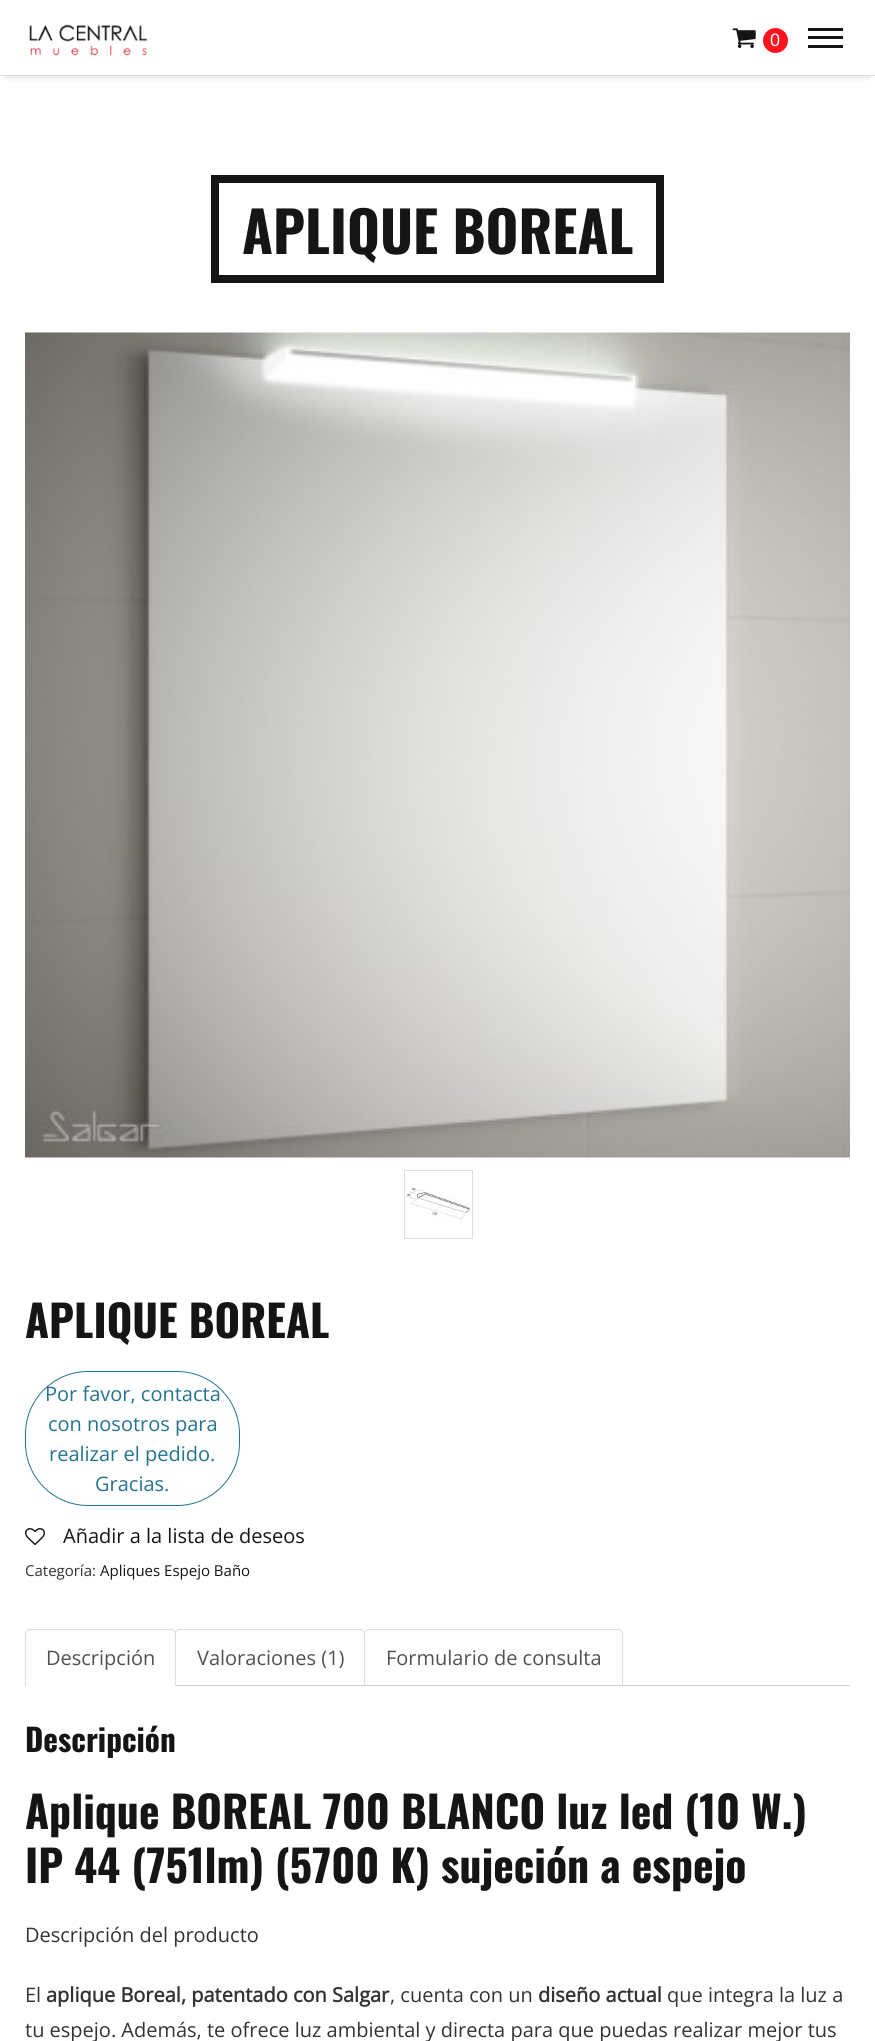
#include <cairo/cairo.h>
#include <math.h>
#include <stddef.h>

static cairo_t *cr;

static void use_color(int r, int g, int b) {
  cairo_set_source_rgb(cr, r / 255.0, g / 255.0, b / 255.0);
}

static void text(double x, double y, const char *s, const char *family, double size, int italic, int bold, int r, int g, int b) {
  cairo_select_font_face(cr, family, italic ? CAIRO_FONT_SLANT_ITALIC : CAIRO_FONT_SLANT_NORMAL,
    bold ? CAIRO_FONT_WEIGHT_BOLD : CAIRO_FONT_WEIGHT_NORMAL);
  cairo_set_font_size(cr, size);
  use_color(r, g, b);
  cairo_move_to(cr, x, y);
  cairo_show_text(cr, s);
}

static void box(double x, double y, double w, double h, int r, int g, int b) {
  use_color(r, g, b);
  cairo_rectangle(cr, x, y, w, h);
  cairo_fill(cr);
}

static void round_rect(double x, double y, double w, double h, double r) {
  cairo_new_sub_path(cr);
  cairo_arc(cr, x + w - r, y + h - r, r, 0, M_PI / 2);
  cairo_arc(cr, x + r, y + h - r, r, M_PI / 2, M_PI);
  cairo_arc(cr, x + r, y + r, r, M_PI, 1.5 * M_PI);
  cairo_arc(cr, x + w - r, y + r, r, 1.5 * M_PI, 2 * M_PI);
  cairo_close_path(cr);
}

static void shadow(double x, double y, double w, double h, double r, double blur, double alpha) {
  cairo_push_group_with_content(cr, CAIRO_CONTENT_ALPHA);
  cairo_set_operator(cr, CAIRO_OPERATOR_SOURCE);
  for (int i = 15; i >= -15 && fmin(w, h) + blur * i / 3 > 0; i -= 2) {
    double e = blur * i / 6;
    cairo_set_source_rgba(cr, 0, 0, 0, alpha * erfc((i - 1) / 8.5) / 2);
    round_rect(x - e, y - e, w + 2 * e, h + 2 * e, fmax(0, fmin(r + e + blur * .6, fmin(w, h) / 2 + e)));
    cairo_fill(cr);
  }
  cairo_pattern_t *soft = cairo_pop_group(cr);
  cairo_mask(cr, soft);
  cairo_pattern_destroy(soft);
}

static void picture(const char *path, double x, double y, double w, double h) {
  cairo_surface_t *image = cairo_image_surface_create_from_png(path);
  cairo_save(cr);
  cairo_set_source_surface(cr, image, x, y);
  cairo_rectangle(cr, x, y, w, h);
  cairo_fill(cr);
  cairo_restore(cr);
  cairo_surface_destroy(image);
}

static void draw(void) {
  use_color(255, 255, 255);
  cairo_paint(cr);
  cairo_save(cr);
  cairo_rectangle(cr, 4, 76, 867, 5);
  cairo_clip(cr);
  use_color(0, 0, 0);
  shadow(5, 11, 865, 67, 0, 3, 0.1);
  cairo_restore(cr);
  box(0, 75, 875, 1, 221, 221, 221);
  picture("img_01.png", 29, 24, 119, 32);
  picture("img_02.png", 732, 28, 24, 20);
  use_color(255, 19, 30);
  cairo_arc(cr, 775.5, 40.5, 12.5, 0, 2 * M_PI);
  cairo_fill(cr);
  box(808, 36, 35, 3, 21, 21, 21);
  box(808, 28, 35, 3, 21, 21, 21);
  box(808, 45, 35, 3, 21, 21, 21);
  cairo_rectangle(cr, 215, 179, 445, 100);
  cairo_set_line_width(cr, 8);
  cairo_stroke(cr);
  picture("img_03.png", 25, 332, 825, 826);
  cairo_rectangle(cr, 404.5, 1170.5, 68, 68);
  use_color(221, 221, 221);
  cairo_set_line_width(cr, 1);
  cairo_stroke(cr);
  picture("img_04.png", 405, 1187, 66, 37);
  round_rect(25.5, 1371.5, 214, 134, 62.5);
  use_color(36, 115, 144);
  cairo_stroke(cr);
  picture("img_05.png", 25, 1528, 20, 18);
  use_color(221, 221, 221);
  cairo_new_path(cr);
  cairo_move_to(cr, 30, 1629);
  cairo_curve_to(cr, 29, 1629, 27, 1629, 27, 1630);
  cairo_line_to(cr, 27, 1631);
  cairo_line_to(cr, 30, 1630);
  cairo_line_to(cr, 171, 1630);
  cairo_line_to(cr, 174, 1631);
  cairo_line_to(cr, 175, 1630);
  cairo_curve_to(cr, 174, 1630, 172, 1629, 171, 1629);
  cairo_close_path(cr);
  cairo_fill(cr);
  cairo_new_path(cr);
  cairo_move_to(cr, 180, 1629.5);
  cairo_line_to(cr, 360, 1629.5);
  cairo_curve_to(cr, 362.5, 1629.5, 364.5, 1631.5, 364.5, 1634);
  cairo_line_to(cr, 364.5, 1685.5);
  cairo_line_to(cr, 175.5, 1685.5);
  cairo_line_to(cr, 175.5, 1634);
  cairo_curve_to(cr, 175.5, 1631.5, 177.5, 1629.5, 180, 1629.5);
  cairo_close_path(cr);
  cairo_stroke(cr);
  cairo_new_path(cr);
  cairo_move_to(cr, 369, 1629.5);
  cairo_line_to(cr, 618, 1629.5);
  cairo_curve_to(cr, 620.5, 1629.5, 622.5, 1631.5, 622.5, 1634);
  cairo_line_to(cr, 622.5, 1685.5);
  cairo_line_to(cr, 364.5, 1685.5);
  cairo_line_to(cr, 364.5, 1634);
  cairo_curve_to(cr, 364.5, 1631.5, 366.5, 1629.5, 369, 1629.5);
  cairo_close_path(cr);
  cairo_stroke(cr);
  box(25, 1685, 825, 1, 211, 206, 210);
  use_color(221, 221, 221);
  cairo_new_path(cr);
  cairo_move_to(cr, 176, 1686);
  cairo_line_to(cr, 176, 1634);
  cairo_curve_to(cr, 176, 1632, 176, 1631, 175, 1630);
  cairo_line_to(cr, 174, 1631);
  cairo_line_to(cr, 175, 1634);
  cairo_line_to(cr, 175, 1685);
  cairo_close_path(cr);
  cairo_fill(cr);
  use_color(255, 255, 255);
  cairo_new_path(cr);
  cairo_move_to(cr, 176, 1686);
  cairo_line_to(cr, 175, 1685);
  cairo_line_to(cr, 26, 1685);
  cairo_line_to(cr, 25, 1686);
  cairo_close_path(cr);
  cairo_fill(cr);
  use_color(221, 221, 221);
  cairo_new_path(cr);
  cairo_move_to(cr, 25, 1634);
  cairo_line_to(cr, 25, 1686);
  cairo_line_to(cr, 26, 1685);
  cairo_line_to(cr, 26, 1634);
  cairo_line_to(cr, 27, 1631);
  cairo_line_to(cr, 27, 1630);
  cairo_curve_to(cr, 26, 1631, 25, 1632, 25, 1634);
  cairo_close_path(cr);
  cairo_fill(cr);
  text(770, 46, "0", "Liberation Sans", 18, 0, 0, 255, 255, 255);
  text(242, 254, "APLIQUE BOREAL", "Oswald", 56.25, 0, 1, 21, 21, 21);
  text(25, 1338, "APLIQUE BOREAL", "Oswald", 43.75, 0, 1, 21, 21, 21);
  text(45, 1401, "Por favor, contacta", "Open Sans", 20, 0, 0, 36, 115, 144);
  text(48, 1431, "con nosotros para", "Open Sans", 20, 0, 0, 36, 115, 144);
  text(49, 1461, "realizar el pedido.", "Open Sans", 20, 0, 0, 36, 115, 144);
  text(95, 1491, "Gracias.", "Open Sans", 20, 0, 0, 36, 115, 144);
  text(63, 1543, "Añadir a la lista de deseos", "Open Sans", 20, 0, 0, 21, 21, 21);
  text(25, 1576, "Categoría:", "Open Sans", 15, 0, 0, 51, 51, 51);
  text(100, 1576, "Apliques Espejo Baño", "Open Sans", 15, 0, 0, 21, 21, 21);
  text(46, 1665, "Descripción", "Open Sans", 20, 0, 0, 81, 81, 81);
  text(197, 1665, "Valoraciones (1)", "Open Sans", 20, 0, 0, 81, 81, 81);
  text(386, 1665, "Formulario de consulta", "Open Sans", 20, 0, 0, 81, 81, 81);
  text(25, 1752, "Descripción", "Oswald", 31.25, 0, 1, 21, 21, 21);
  text(25, 1829, "Aplique BOREAL 700 BLANCO luz led (10 W.)", "Oswald", 43.75, 0, 1, 21, 21, 21);
  text(25, 1883, "IP 44 (751lm) (5700 K) sujeción a espejo", "Oswald", 43.75, 0, 1, 21, 21, 21);
  text(25, 1942, "Descripción del producto", "Open Sans", 20, 0, 0, 51, 51, 51);
  text(25, 2002, "El", "Open Sans", 20, 0, 0, 51, 51, 51);
  text(46, 2002, "aplique Boreal, patentado con Salgar", "Open Sans", 20, 0, 1, 51, 51, 51);
  text(390, 2002, ", cuenta con un", "Open Sans", 20, 0, 0, 51, 51, 51);
  text(538, 2002, "diseño actual", "Open Sans", 20, 0, 1, 51, 51, 51);
  text(667, 2002, "que integra la luz a", "Open Sans", 20, 0, 0, 51, 51, 51);
  text(25, 2037, "tu espejo. Además, te ofrece luz ambiental y directa para que puedas realizar mejor tus", "Open Sans", 20, 0, 0, 51, 51, 51);
}

int main(void) {
  cairo_surface_t *surface = cairo_image_surface_create(CAIRO_FORMAT_RGB24, 875, 2041);
  cr = cairo_create(surface);
  cairo_font_options_t *options = cairo_font_options_create();
  cairo_font_options_set_hint_metrics(options, CAIRO_HINT_METRICS_OFF);
  cairo_font_options_set_hint_style(options, CAIRO_HINT_STYLE_NONE);
  cairo_set_font_options(cr, options);
  cairo_set_miter_limit(cr, 4);
  draw();
  cairo_surface_write_to_png(surface, "out.png");
  cairo_font_options_destroy(options);
  cairo_destroy(cr);
  cairo_surface_destroy(surface);
  return 0;
}
